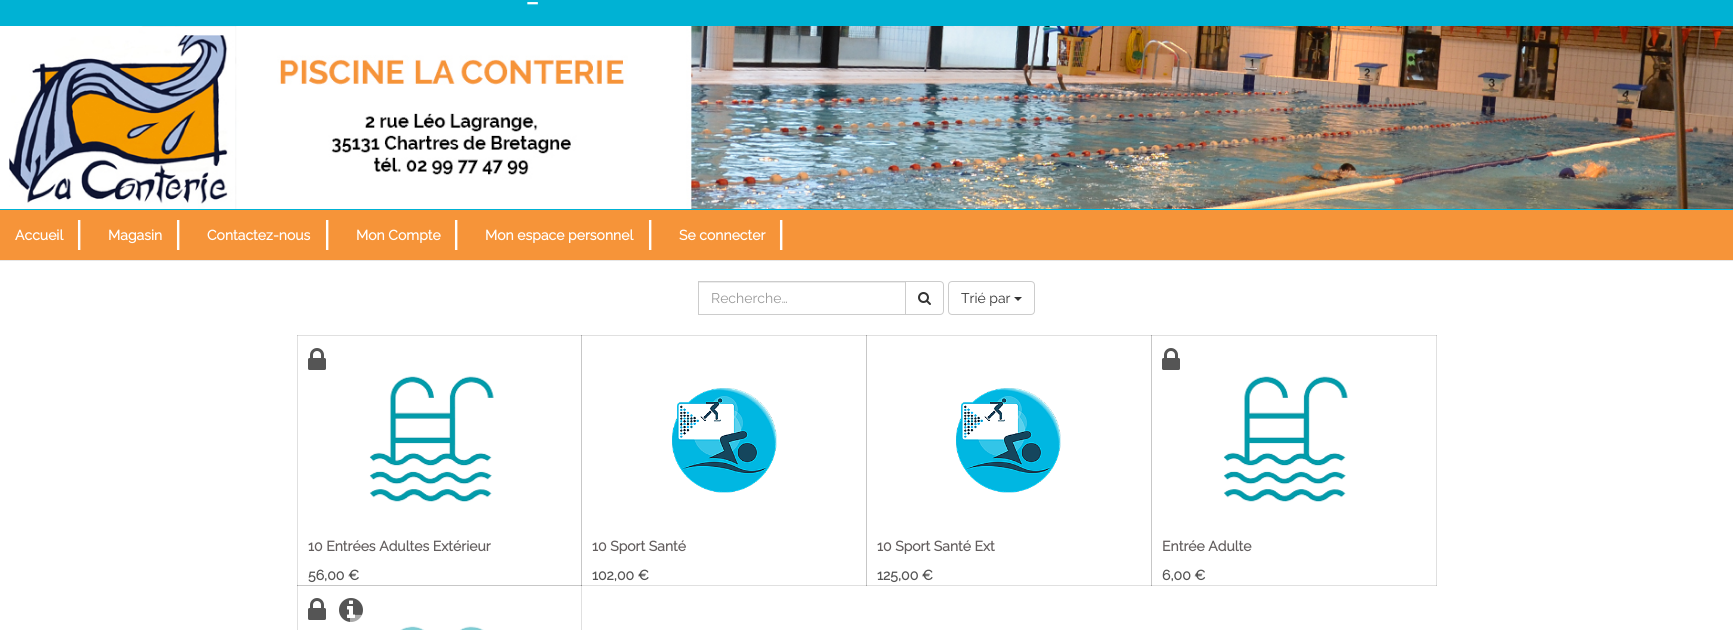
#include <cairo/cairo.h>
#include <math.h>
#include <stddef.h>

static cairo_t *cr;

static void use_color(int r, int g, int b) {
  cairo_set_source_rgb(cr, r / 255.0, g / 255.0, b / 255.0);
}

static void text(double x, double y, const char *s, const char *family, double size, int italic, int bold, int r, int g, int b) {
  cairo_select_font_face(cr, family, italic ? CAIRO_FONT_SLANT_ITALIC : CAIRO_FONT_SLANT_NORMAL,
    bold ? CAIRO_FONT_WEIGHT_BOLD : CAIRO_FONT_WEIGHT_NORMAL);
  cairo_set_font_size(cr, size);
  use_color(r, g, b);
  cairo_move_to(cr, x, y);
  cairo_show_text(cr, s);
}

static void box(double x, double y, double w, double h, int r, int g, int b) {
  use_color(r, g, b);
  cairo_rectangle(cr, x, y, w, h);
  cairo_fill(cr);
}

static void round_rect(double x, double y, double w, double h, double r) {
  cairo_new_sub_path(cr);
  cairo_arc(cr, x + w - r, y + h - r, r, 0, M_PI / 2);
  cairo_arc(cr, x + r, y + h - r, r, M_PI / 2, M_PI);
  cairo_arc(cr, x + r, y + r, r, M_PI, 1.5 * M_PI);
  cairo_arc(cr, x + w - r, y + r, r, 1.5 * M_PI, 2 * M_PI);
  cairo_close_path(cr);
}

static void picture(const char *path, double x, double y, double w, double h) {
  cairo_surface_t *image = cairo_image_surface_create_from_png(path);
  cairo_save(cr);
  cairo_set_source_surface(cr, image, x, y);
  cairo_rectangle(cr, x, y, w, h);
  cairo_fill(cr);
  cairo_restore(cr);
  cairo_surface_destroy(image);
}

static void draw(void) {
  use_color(255, 255, 255);
  cairo_paint(cr);
  box(297, 335, 1, 295, 224, 224, 224);
  box(297, 335, 285, 1, 224, 224, 224);
  box(297, 335, 1, 1, 199, 199, 199);
  box(581, 335, 1, 251, 199, 199, 199);
  box(581, 585, 286, 1, 224, 224, 224);
  box(581, 335, 286, 1, 224, 224, 224);
  box(581, 335, 1, 1, 163, 163, 163);
  box(866, 335, 1, 251, 199, 199, 199);
  box(866, 585, 286, 1, 224, 224, 224);
  box(866, 585, 1, 1, 163, 163, 163);
  box(866, 335, 286, 1, 224, 224, 224);
  box(866, 335, 1, 1, 163, 163, 163);
  box(1151, 335, 1, 251, 199, 199, 199);
  box(1151, 585, 286, 1, 224, 224, 224);
  box(1151, 585, 1, 1, 163, 163, 163);
  box(1436, 335, 1, 251, 224, 224, 224);
  box(1436, 585, 1, 1, 199, 199, 199);
  box(581, 585, 1, 45, 224, 224, 224);
  box(0, 0, 1733, 26, 0, 178, 212);
  box(0, 209, 1733, 1, 0, 178, 212);
  picture("img_01.png", 9, 26, 1724, 183);
  box(0, 210, 1733, 50, 246, 148, 57);
  box(0, 260, 1733, 1, 231, 231, 231);
  box(699, 282, 206, 1, 236, 236, 236);
  cairo_rectangle(cr, 698.5, 281.5, 207, 33);
  use_color(204, 204, 204);
  cairo_set_line_width(cr, 1);
  cairo_stroke(cr);
  use_color(255, 255, 255);
  cairo_new_path(cr);
  cairo_move_to(cr, 905.5, 281.5);
  cairo_line_to(cr, 940, 281.5);
  cairo_curve_to(cr, 942, 281.5, 943.5, 283, 943.5, 285);
  cairo_line_to(cr, 943.5, 311);
  cairo_curve_to(cr, 943.5, 313, 942, 314.5, 940, 314.5);
  cairo_line_to(cr, 905.5, 314.5);
  cairo_close_path(cr);
  cairo_fill_preserve(cr);
  use_color(204, 204, 204);
  cairo_stroke(cr);
  picture("img_02.png", 918, 292, 13, 13);
  round_rect(948.5, 281.5, 86, 33, 3.5);
  cairo_stroke(cr);
  use_color(51, 51, 51);
  cairo_new_path(cr);
  cairo_move_to(cr, 1014, 297);
  cairo_line_to(cr, 1022, 297);
  cairo_line_to(cr, 1018, 301);
  cairo_close_path(cr);
  cairo_fill(cr);
  picture("img_03.png", 308, 348, 18, 22);
  picture("img_04.png", 369, 376, 125, 126);
  picture("img_05.png", 672, 388, 105, 105);
  picture("img_06.png", 956, 388, 105, 105);
  box(1151, 335, 286, 1, 224, 224, 224);
  box(1151, 335, 1, 1, 163, 163, 163);
  box(1436, 335, 1, 1, 199, 199, 199);
  picture("img_03.png", 1162, 348, 18, 22);
  picture("img_07.png", 1223, 376, 125, 126);
  box(297, 585, 285, 1, 199, 199, 199);
  box(297, 585, 1, 1, 163, 163, 163);
  box(581, 585, 1, 1, 140, 140, 140);
  picture("img_03.png", 308, 598, 18, 22);
  picture("img_08.png", 339, 598, 24, 24);
  picture("img_09.png", 350, 614, 134, 16);
  text(525, 13, "-", "Raleway Thin", 36, 0, 0, 255, 255, 255);
  text(15, 240, "Accueil", "Raleway", 14, 0, 1, 255, 255, 255);
  text(78, 244, "⎸", "FreeSans", 30, 0, 0, 255, 255, 255);
  text(108, 240, "Magasin", "Raleway", 14, 0, 1, 255, 255, 255);
  text(177, 244, "⎸", "FreeSans", 30, 0, 0, 255, 255, 255);
  text(207, 240, "Contactez-nous", "Raleway", 14, 0, 1, 255, 255, 255);
  text(326, 244, "⎸", "FreeSans", 30, 0, 0, 255, 255, 255);
  text(356, 240, "Mon Compte", "Raleway", 14, 0, 1, 255, 255, 255);
  text(455, 244, "⎸", "FreeSans", 30, 0, 0, 255, 255, 255);
  text(485, 240, "Mon espace personnel", "Raleway", 14, 0, 1, 255, 255, 255);
  text(649, 244, "⎸", "FreeSans", 30, 0, 0, 255, 255, 255);
  text(679, 240, "Se connecter", "Raleway", 14, 0, 1, 255, 255, 255);
  text(780, 244, "⎸", "FreeSans", 30, 0, 0, 255, 255, 255);
  text(711, 303, "Recherche…", "Raleway Thin", 14, 0, 0, 153, 153, 153);
  text(961, 303, "Trié par", "Raleway Thin", 14, 0, 0, 51, 51, 51);
  text(308, 551, "10 Entrées Adultes Extérieur", "Raleway", 14, 0, 1, 99, 94, 94);
  text(308, 580, "56,00 €", "Raleway", 14, 0, 1, 85, 85, 85);
  text(592, 551, "10 Sport Santé", "Raleway", 14, 0, 1, 99, 94, 94);
  text(592, 580, "102,00 €", "Raleway", 14, 0, 1, 85, 85, 85);
  text(877, 551, "10 Sport Santé Ext", "Raleway", 14, 0, 1, 99, 94, 94);
  text(877, 580, "125,00 €", "Raleway", 14, 0, 1, 85, 85, 85);
  text(1162, 551, "Entrée Adulte", "Raleway", 14, 0, 1, 99, 94, 94);
  text(1162, 580, "6,00 €", "Raleway", 14, 0, 1, 85, 85, 85);
}

int main(void) {
  cairo_surface_t *surface = cairo_image_surface_create(CAIRO_FORMAT_RGB24, 1733, 630);
  cr = cairo_create(surface);
  cairo_font_options_t *options = cairo_font_options_create();
  cairo_font_options_set_hint_metrics(options, CAIRO_HINT_METRICS_OFF);
  cairo_font_options_set_hint_style(options, CAIRO_HINT_STYLE_NONE);
  cairo_set_font_options(cr, options);
  cairo_set_miter_limit(cr, 4);
  draw();
  cairo_surface_write_to_png(surface, "out.png");
  cairo_font_options_destroy(options);
  cairo_destroy(cr);
  cairo_surface_destroy(surface);
  return 0;
}
